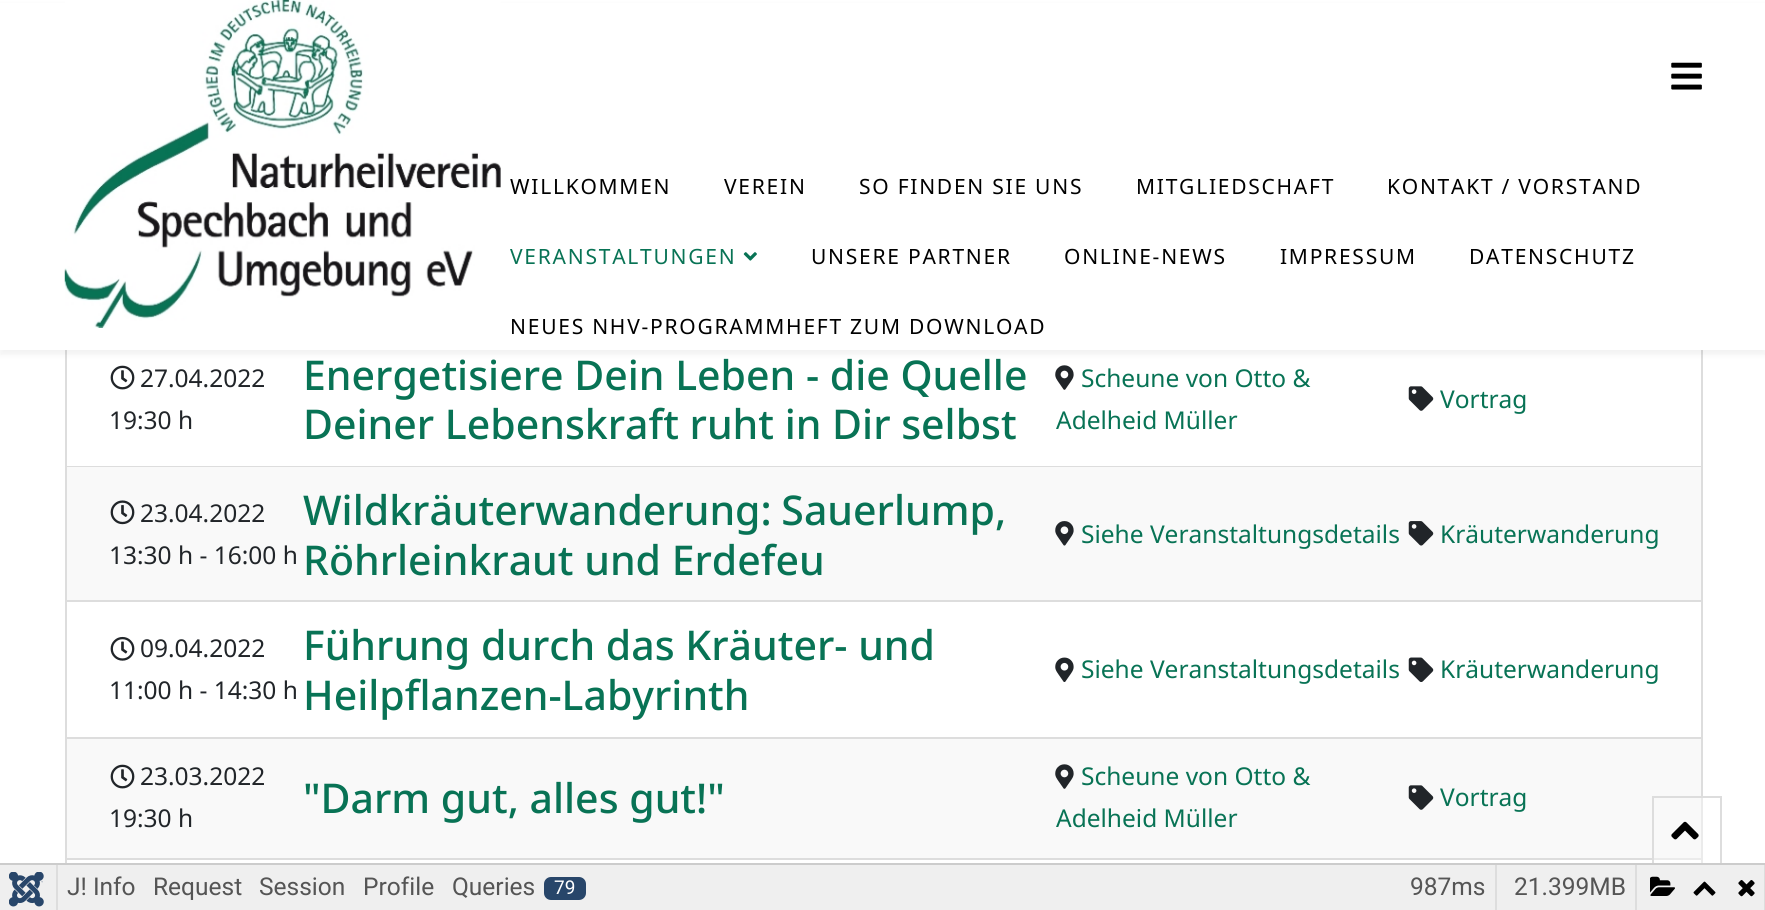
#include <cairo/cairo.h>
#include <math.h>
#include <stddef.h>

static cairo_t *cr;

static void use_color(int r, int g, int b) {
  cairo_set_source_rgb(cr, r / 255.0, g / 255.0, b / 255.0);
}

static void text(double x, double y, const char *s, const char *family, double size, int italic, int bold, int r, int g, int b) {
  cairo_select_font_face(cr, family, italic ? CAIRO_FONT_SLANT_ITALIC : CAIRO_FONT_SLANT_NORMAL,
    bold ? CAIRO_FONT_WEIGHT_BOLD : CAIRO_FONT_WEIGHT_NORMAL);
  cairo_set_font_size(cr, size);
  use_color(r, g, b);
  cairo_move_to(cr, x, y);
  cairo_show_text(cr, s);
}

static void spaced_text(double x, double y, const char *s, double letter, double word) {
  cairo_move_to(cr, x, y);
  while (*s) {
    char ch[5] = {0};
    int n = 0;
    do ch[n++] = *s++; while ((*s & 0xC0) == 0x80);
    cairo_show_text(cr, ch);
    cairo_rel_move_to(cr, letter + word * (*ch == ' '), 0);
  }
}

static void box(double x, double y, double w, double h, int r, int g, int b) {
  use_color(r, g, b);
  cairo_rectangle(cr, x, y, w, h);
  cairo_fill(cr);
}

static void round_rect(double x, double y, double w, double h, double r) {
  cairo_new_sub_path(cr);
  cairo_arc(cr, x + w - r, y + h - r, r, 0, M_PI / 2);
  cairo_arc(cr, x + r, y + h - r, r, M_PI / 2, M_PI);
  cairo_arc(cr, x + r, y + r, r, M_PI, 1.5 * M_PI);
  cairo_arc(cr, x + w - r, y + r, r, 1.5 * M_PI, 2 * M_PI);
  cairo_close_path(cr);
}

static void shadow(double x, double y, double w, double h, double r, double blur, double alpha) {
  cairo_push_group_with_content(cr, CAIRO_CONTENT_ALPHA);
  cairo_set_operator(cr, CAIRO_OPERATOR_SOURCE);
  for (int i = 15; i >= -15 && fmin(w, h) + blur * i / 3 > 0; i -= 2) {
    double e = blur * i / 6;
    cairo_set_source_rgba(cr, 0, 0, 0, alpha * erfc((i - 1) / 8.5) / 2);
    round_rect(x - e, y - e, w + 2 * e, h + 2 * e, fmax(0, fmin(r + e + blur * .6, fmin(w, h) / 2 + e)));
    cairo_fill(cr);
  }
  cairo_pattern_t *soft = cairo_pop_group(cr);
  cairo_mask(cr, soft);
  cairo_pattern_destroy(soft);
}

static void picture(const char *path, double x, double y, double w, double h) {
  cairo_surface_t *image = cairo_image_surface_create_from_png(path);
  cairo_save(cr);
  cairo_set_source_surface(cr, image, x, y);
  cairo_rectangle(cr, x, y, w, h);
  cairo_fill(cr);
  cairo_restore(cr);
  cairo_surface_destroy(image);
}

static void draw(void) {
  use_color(255, 255, 255);
  cairo_paint(cr);
  box(1701, 350, 2, 446, 221, 221, 221);
  box(65, 466, 1638, 1, 221, 221, 221);
  box(65, 350, 2, 117, 221, 221, 221);
  use_color(0, 0, 0);
  shadow(0, 5, 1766, 350, 0, 2.5, 0.05);
  box(0, 3, 1765, 347, 255, 255, 255);
  picture("img_01.png", 64, 0, 437, 328);
  picture("img_02.png", 1671, 62, 31, 28);
  picture("img_03.png", 743, 252, 14, 9);
  picture("img_04.png", 110, 365, 25, 25);
  picture("img_05.png", 1055, 365, 19, 25);
  picture("img_06.png", 1408, 386, 26, 25);
  box(67, 467, 1634, 133, 249, 249, 249);
  box(65, 600, 1638, 2, 221, 221, 221);
  box(65, 467, 2, 135, 221, 221, 221);
  picture("img_07.png", 110, 500, 25, 25);
  picture("img_08.png", 1055, 521, 19, 25);
  picture("img_09.png", 1408, 521, 26, 25);
  box(65, 737, 1638, 2, 221, 221, 221);
  box(65, 602, 2, 137, 221, 221, 221);
  picture("img_10.png", 110, 636, 25, 25);
  picture("img_11.png", 1055, 657, 19, 25);
  picture("img_12.png", 1408, 657, 26, 25);
  box(67, 739, 1634, 119, 249, 249, 249);
  box(1701, 796, 2, 63, 235, 235, 235);
  box(65, 858, 1587, 2, 221, 221, 221);
  box(1652, 858, 51, 2, 235, 235, 235);
  box(65, 739, 2, 124, 221, 221, 221);
  picture("img_13.png", 110, 764, 25, 25);
  picture("img_14.png", 1055, 764, 19, 25);
  picture("img_15.png", 1408, 785, 26, 25);
  box(1701, 859, 2, 7, 235, 235, 235);
  cairo_rectangle(cr, 1653, 797, 68, 68);
  use_color(221, 221, 221);
  cairo_stroke(cr);
  picture("img_16.png", 1671, 821, 28, 19);
  box(0, 863, 1765, 2, 204, 204, 204);
  box(58, 865, 1706, 45, 239, 239, 239);
  box(0, 865, 56, 45, 239, 239, 239);
  picture("img_17.png", 9, 872, 35, 35);
  box(56, 865, 2, 45, 221, 221, 221);
  use_color(40, 70, 106);
  round_rect(544, 877, 42, 23, 7);
  cairo_fill(cr);
  box(1495, 865, 2, 45, 221, 221, 221);
  box(1635, 865, 2, 45, 221, 221, 221);
  picture("img_18.png", 1650, 876, 25, 20);
  picture("img_19.png", 1693, 881, 23, 15);
  picture("img_20.png", 1738, 880, 17, 17);
  box(1764, 865, 1, 45, 221, 221, 221);
  cairo_select_font_face(cr, "Noto Sans", CAIRO_FONT_SLANT_NORMAL, CAIRO_FONT_WEIGHT_NORMAL);
  cairo_set_font_size(cr, 21);
  use_color(0, 0, 0);
  spaced_text(510, 194, "WILLKOMMEN", 1.75, 0);
  spaced_text(724, 194, "VEREIN", 1.75, 0);
  spaced_text(859, 194, "SO FINDEN SIE UNS", 1.75, 0);
  spaced_text(1136, 194, "MITGLIEDSCHAFT", 1.75, 0);
  spaced_text(1387, 194, "KONTAKT / VORSTAND", 1.75, 0);
  use_color(8, 115, 85);
  spaced_text(510, 264, "VERANSTALTUNGEN", 1.75, 0);
  use_color(0, 0, 0);
  spaced_text(811, 264, "UNSERE PARTNER", 1.75, 0);
  spaced_text(1064, 264, "ONLINE-NEWS", 1.75, 0);
  spaced_text(1280, 264, "IMPRESSUM", 1.75, 0);
  spaced_text(1469, 264, "DATENSCHUTZ", 1.75, 0);
  spaced_text(510, 334, "NEUES NHV-PROGRAMMHEFT ZUM DOWNLOAD", 1.75, 0);
  text(140, 387, "27.04.2022", "Noto Sans", 24.5, 0, 0, 33, 37, 41);
  text(109, 429, "19:30 h", "Noto Sans", 24.5, 0, 0, 33, 37, 41);
  text(303, 390, "Energetisiere Dein Leben - die Quelle", "Noto Sans Medium", 41, 0, 0, 8, 115, 85);
  text(303, 439, "Deiner Lebenskraft ruht in Dir selbst", "Noto Sans Medium", 41, 0, 0, 8, 115, 85);
  text(1081, 387, "Scheune von Otto &", "Noto Sans", 24.5, 0, 0, 8, 115, 85);
  text(1056, 429, "Adelheid Müller", "Noto Sans", 24.5, 0, 0, 8, 115, 85);
  text(1440, 408, "Vortrag", "Noto Sans", 24.5, 0, 0, 8, 115, 85);
  text(140, 522, "23.04.2022", "Noto Sans", 24.5, 0, 0, 33, 37, 41);
  text(109, 564, "13:30 h - 16:00 h", "Noto Sans", 24.5, 0, 0, 33, 37, 41);
  cairo_select_font_face(cr, "Noto Sans Medium", CAIRO_FONT_SLANT_NORMAL, CAIRO_FONT_WEIGHT_NORMAL);
  cairo_set_font_size(cr, 41);
  use_color(8, 115, 85);
  spaced_text(303, 525, "Wildkräuterwanderung: Sauerlump,", 0, -1);
  text(303, 575, "Röhrleinkraut und Erdefeu", "Noto Sans Medium", 41, 0, 0, 8, 115, 85);
  text(1081, 543, "Siehe Veranstaltungsdetails", "Noto Sans", 24.5, 0, 0, 8, 115, 85);
  text(1440, 543, "Kräuterwanderung", "Noto Sans", 24.5, 0, 0, 8, 115, 85);
  text(140, 657, "09.04.2022", "Noto Sans", 24.5, 0, 0, 33, 37, 41);
  text(109, 699, "11:00 h - 14:30 h", "Noto Sans", 24.5, 0, 0, 33, 37, 41);
  text(303, 660, "Führung durch das Kräuter- und", "Noto Sans Medium", 41, 0, 0, 8, 115, 85);
  text(303, 710, "Heilpflanzen-Labyrinth", "Noto Sans Medium", 41, 0, 0, 8, 115, 85);
  text(1081, 678, "Siehe Veranstaltungsdetails", "Noto Sans", 24.5, 0, 0, 8, 115, 85);
  text(1440, 678, "Kräuterwanderung", "Noto Sans", 24.5, 0, 0, 8, 115, 85);
  text(140, 785, "23.03.2022", "Noto Sans", 24.5, 0, 0, 33, 37, 41);
  text(109, 827, "19:30 h", "Noto Sans", 24.5, 0, 0, 33, 37, 41);
  text(303, 813, "\"Darm gut, alles gut!\"", "Noto Sans Medium", 41, 0, 0, 8, 115, 85);
  text(1081, 785, "Scheune von Otto &", "Noto Sans", 24.5, 0, 0, 8, 115, 85);
  text(1056, 827, "Adelheid Müller", "Noto Sans", 24.5, 0, 0, 8, 115, 85);
  text(1440, 806, "Vortrag", "Noto Sans", 24.5, 0, 0, 8, 115, 85);
  text(67, 895, "J! Info", "Roboto", 24.5, 0, 0, 85, 85, 85);
  text(153, 895, "Request", "Roboto", 24.5, 0, 0, 85, 85, 85);
  text(259, 895, "Session", "Roboto", 24.5, 0, 0, 85, 85, 85);
  text(363, 895, "Profile", "Roboto", 24.5, 0, 0, 85, 85, 85);
  text(452, 895, "Queries", "Roboto", 24.5, 0, 0, 85, 85, 85);
  text(554, 894, "79", "Roboto", 19, 0, 0, 255, 255, 255);
  text(1410, 895, "987ms", "Roboto", 24.5, 0, 0, 85, 85, 85);
  text(1514, 895, "21.399MB", "Roboto", 24.5, 0, 0, 85, 85, 85);
}

int main(void) {
  cairo_surface_t *surface = cairo_image_surface_create(CAIRO_FORMAT_RGB24, 1765, 910);
  cr = cairo_create(surface);
  cairo_font_options_t *options = cairo_font_options_create();
  cairo_font_options_set_hint_metrics(options, CAIRO_HINT_METRICS_OFF);
  cairo_font_options_set_hint_style(options, CAIRO_HINT_STYLE_NONE);
  cairo_set_font_options(cr, options);
  cairo_set_miter_limit(cr, 4);
  draw();
  cairo_surface_write_to_png(surface, "out.png");
  cairo_font_options_destroy(options);
  cairo_destroy(cr);
  cairo_surface_destroy(surface);
  return 0;
}
